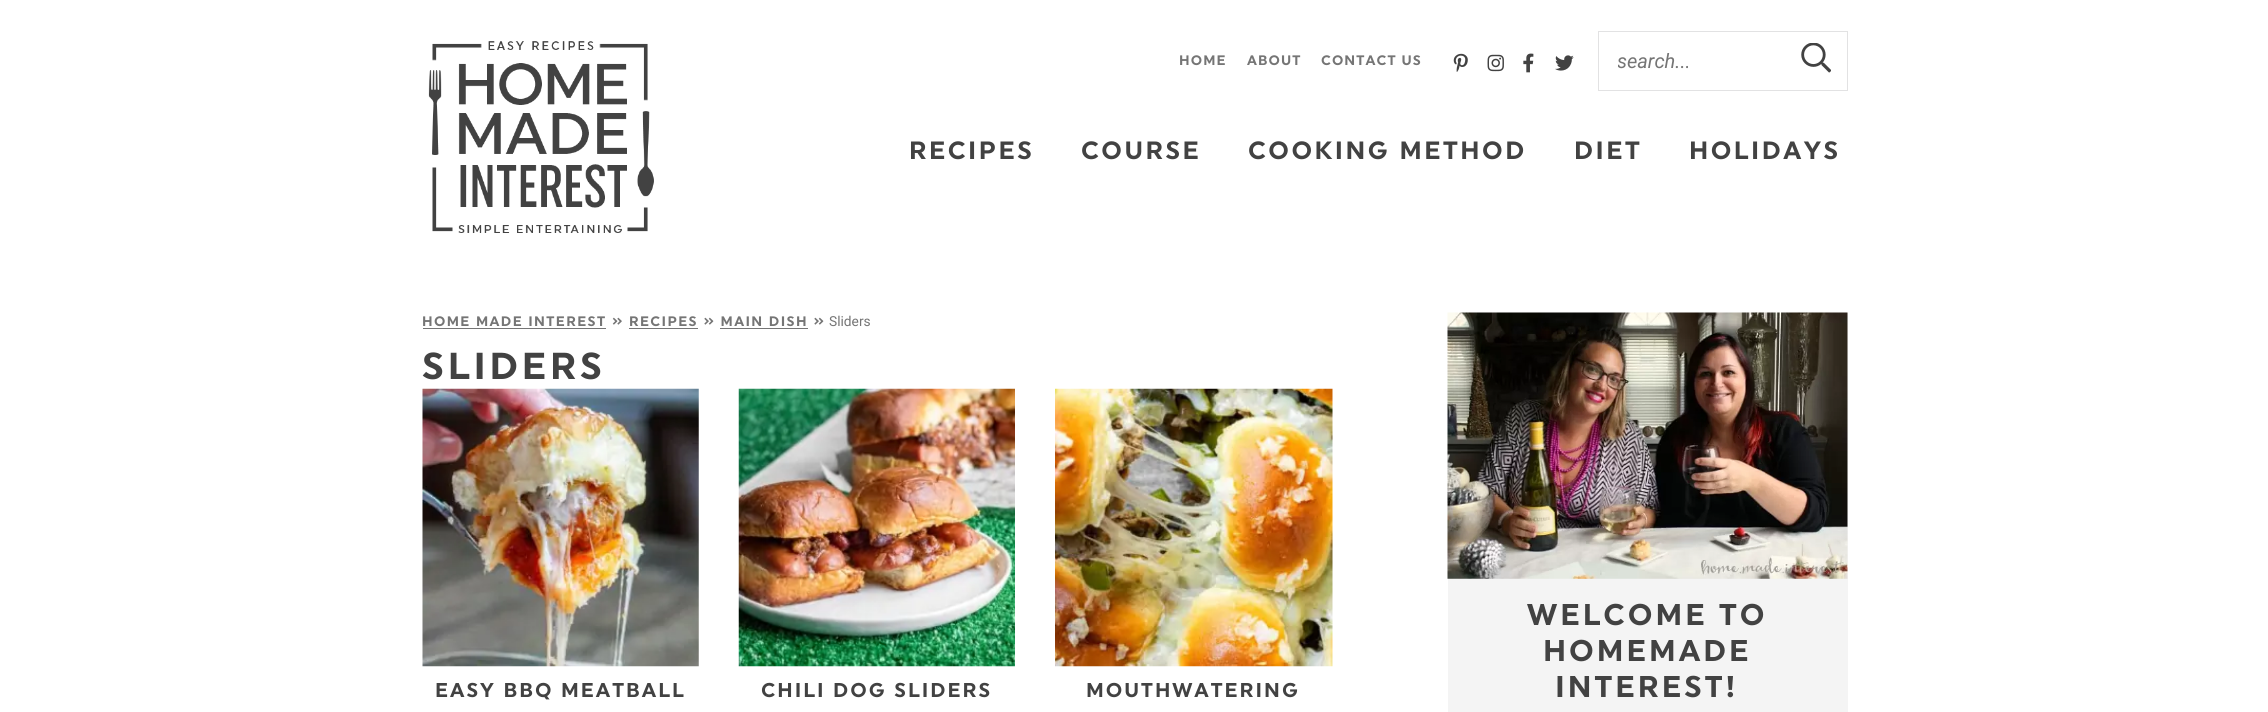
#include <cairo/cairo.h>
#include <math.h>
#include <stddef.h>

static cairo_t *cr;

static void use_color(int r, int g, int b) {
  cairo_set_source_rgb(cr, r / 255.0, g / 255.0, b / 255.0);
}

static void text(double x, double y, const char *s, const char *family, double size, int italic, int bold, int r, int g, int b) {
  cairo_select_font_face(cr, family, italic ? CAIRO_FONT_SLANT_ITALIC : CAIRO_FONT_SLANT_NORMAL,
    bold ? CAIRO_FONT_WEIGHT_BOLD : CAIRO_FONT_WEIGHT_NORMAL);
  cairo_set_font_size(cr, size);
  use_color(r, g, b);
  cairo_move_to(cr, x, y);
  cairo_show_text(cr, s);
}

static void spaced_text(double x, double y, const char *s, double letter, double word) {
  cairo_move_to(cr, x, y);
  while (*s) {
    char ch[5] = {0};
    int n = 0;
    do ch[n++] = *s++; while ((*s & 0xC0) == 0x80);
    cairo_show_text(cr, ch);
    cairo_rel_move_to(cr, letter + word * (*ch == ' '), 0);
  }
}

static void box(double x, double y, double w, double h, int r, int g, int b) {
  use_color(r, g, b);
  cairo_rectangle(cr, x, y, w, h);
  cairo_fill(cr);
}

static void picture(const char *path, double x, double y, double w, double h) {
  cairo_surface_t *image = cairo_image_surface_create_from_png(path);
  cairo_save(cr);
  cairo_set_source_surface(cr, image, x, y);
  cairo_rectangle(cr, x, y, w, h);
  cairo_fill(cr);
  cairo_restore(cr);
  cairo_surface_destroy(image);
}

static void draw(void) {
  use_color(255, 255, 255);
  cairo_paint(cr);
  picture("img_01.png", 428, 41, 226, 192);
  picture("img_02.png", 1453, 53, 15, 19);
  picture("img_03.png", 1487, 54, 17, 18);
  picture("img_04.png", 1523, 53, 11, 20);
  picture("img_05.png", 1555, 55, 19, 16);
  cairo_rectangle(cr, 1598.5, 31.5, 249, 59);
  use_color(226, 226, 227);
  cairo_set_line_width(cr, 1);
  cairo_stroke(cr);
  picture("img_06.png", 1801, 43, 30, 30);
  box(423, 328, 183, 1, 117, 117, 117);
  box(629, 328, 69, 1, 117, 117, 117);
  box(720, 328, 88, 1, 117, 117, 117);
  picture("img_07.png", 422, 388, 277, 279);
  picture("img_08.png", 738, 388, 277, 279);
  picture("img_09.png", 1055, 388, 278, 279);
  box(1448, 313, 400, 399, 244, 244, 244);
  picture("img_10.png", 1447, 312, 401, 267);
  cairo_select_font_face(cr, "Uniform", CAIRO_FONT_SLANT_NORMAL, CAIRO_FONT_WEIGHT_BOLD);
  cairo_set_font_size(cr, 13.75);
  use_color(117, 117, 117);
  spaced_text(1179, 65, "HOME", 1.1, 0);
  spaced_text(1247, 65, "ABOUT", 1.1, 0);
  spaced_text(1321, 65, "CONTACT US", 1.1, 0);
  cairo_save(cr);
  cairo_rectangle(cr, 1618, 49, 191, 24);
  cairo_clip(cr);
  text(1617, 68, "search...", "Roboto", 20, 1, 0, 117, 117, 117);
  cairo_restore(cr);
  cairo_set_font_size(cr, 25);
  use_color(66, 66, 66);
  spaced_text(909, 159, "RECIPES", 2.5, 0);
  spaced_text(1081, 159, "COURSE", 2.5, 0);
  spaced_text(1248, 159, "COOKING METHOD", 2.5, 0);
  spaced_text(1574, 159, "DIET", 2.5, 0);
  spaced_text(1689, 159, "HOLIDAYS", 2.5, 0);
  cairo_set_font_size(cr, 13.75);
  use_color(117, 117, 117);
  spaced_text(422, 326, "HOME MADE INTEREST » RECIPES » MAIN DISH »", 1.4, 0);
  text(829, 326, "Sliders", "Roboto", 13.75, 0, 0, 117, 117, 117);
  cairo_select_font_face(cr, "Uniform", CAIRO_FONT_SLANT_NORMAL, CAIRO_FONT_WEIGHT_BOLD);
  cairo_set_font_size(cr, 37.5);
  use_color(66, 66, 66);
  spaced_text(422, 379, "SLIDERS", 3.75, 0);
  cairo_set_font_size(cr, 20);
  spaced_text(435, 697, "EASY BBQ MEATBALL", 2, 0);
  spaced_text(761, 697, "CHILI DOG SLIDERS", 2, 0);
  spaced_text(1086, 697, "MOUTHWATERING", 2, 0);
  cairo_set_font_size(cr, 30);
  spaced_text(1527, 625, "WELCOME TO", 3, 0);
  spaced_text(1543, 661, "HOMEMADE", 3, 0);
  spaced_text(1555, 697, "INTEREST!", 3, 0);
}

int main(void) {
  cairo_surface_t *surface = cairo_image_surface_create(CAIRO_FORMAT_RGB24, 2268, 712);
  cr = cairo_create(surface);
  cairo_font_options_t *options = cairo_font_options_create();
  cairo_font_options_set_hint_metrics(options, CAIRO_HINT_METRICS_OFF);
  cairo_font_options_set_hint_style(options, CAIRO_HINT_STYLE_NONE);
  cairo_set_font_options(cr, options);
  cairo_set_miter_limit(cr, 4);
  draw();
  cairo_surface_write_to_png(surface, "out.png");
  cairo_font_options_destroy(options);
  cairo_destroy(cr);
  cairo_surface_destroy(surface);
  return 0;
}
